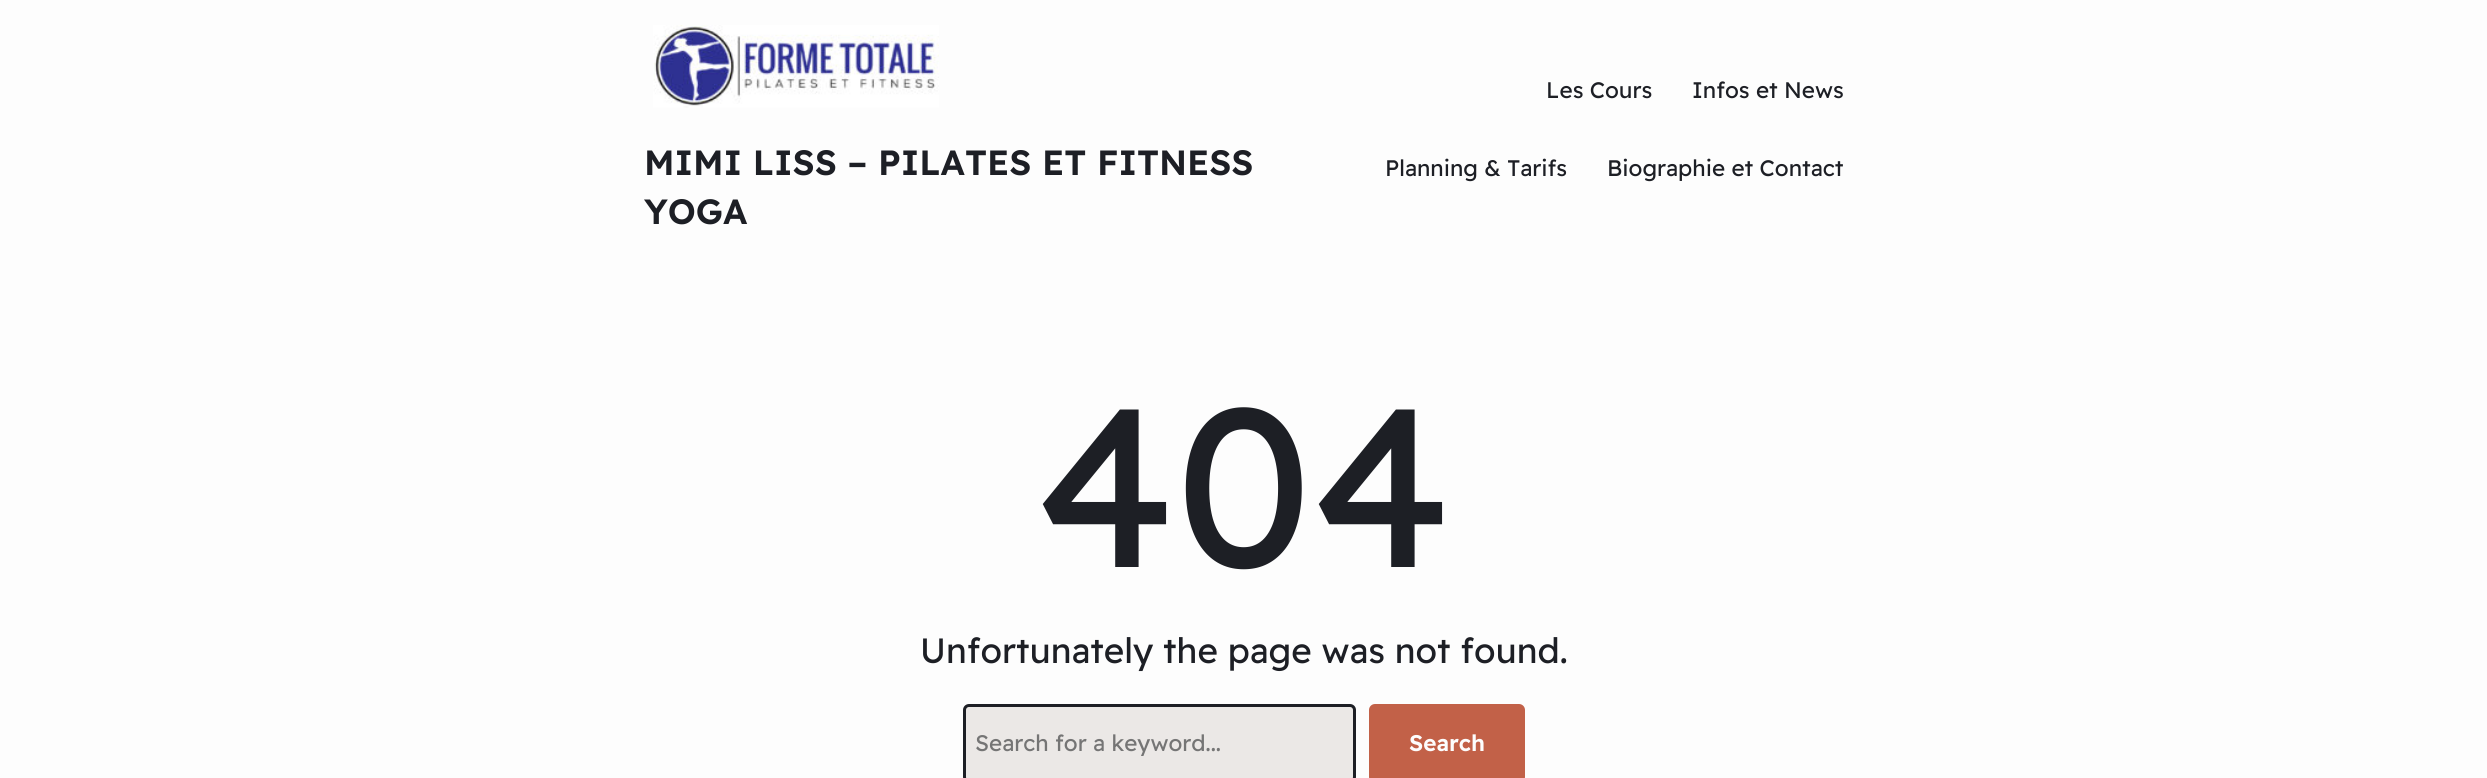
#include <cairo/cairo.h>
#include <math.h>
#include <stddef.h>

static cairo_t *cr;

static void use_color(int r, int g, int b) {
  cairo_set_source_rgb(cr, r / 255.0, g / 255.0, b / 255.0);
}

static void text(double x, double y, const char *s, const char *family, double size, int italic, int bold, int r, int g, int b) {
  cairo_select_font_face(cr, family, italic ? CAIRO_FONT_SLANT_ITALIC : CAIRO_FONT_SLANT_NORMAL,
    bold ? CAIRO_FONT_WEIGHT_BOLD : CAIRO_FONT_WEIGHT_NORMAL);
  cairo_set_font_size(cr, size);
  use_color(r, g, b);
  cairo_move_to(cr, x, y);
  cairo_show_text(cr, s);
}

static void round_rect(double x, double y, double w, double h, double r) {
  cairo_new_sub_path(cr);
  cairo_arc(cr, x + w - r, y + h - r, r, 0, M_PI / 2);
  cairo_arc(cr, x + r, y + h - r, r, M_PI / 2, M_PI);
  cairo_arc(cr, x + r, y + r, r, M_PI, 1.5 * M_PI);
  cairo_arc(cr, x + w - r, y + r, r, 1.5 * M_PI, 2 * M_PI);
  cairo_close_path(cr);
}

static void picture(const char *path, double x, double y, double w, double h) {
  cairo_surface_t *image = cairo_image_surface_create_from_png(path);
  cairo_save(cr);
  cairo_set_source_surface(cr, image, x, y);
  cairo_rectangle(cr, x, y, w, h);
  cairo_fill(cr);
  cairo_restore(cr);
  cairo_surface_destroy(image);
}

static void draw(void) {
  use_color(253, 253, 253);
  cairo_paint(cr);
  picture("img_01.png", 653, 25, 286, 83);
  use_color(235, 232, 230);
  round_rect(964.5, 705.5, 390, 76, 4.5);
  cairo_fill_preserve(cr);
  use_color(29, 31, 37);
  cairo_set_line_width(cr, 3);
  cairo_stroke(cr);
  use_color(194, 97, 72);
  round_rect(1369, 704, 156, 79, 6);
  cairo_fill(cr);
  text(644, 175, "MIMI LISS – PILATES ET FITNESS", "Readex Pro SemiBold", 35, 0, 0, 29, 31, 37);
  text(644, 224, "YOGA", "Readex Pro SemiBold", 35, 0, 0, 29, 31, 37);
  text(1546, 98, "Les Cours", "Readex Pro", 22.5, 0, 0, 29, 31, 37);
  text(1692, 98, "Infos et News", "Readex Pro", 22.5, 0, 0, 29, 31, 37);
  text(1385, 176, "Planning & Tarifs", "Readex Pro", 22.5, 0, 0, 29, 31, 37);
  text(1607, 176, "Biographie et Contact", "Readex Pro", 22.5, 0, 0, 29, 31, 37);
  text(1036, 567, "404", "Readex Pro", 225, 0, 0, 29, 31, 37);
  text(920, 663, "Unfortunately the page was not found.", "Readex Pro", 35, 0, 0, 29, 31, 37);
  cairo_save(cr);
  cairo_rectangle(cr, 975, 728, 349, 28);
  cairo_clip(cr);
  text(975, 751, "Search for a keyword...", "Readex Pro", 22.5, 0, 0, 117, 117, 117);
  cairo_restore(cr);
  text(1409, 751, "Search", "Readex Pro SemiBold", 22.5, 0, 0, 253, 253, 253);
}

int main(void) {
  cairo_surface_t *surface = cairo_image_surface_create(CAIRO_FORMAT_RGB24, 2487, 778);
  cr = cairo_create(surface);
  cairo_font_options_t *options = cairo_font_options_create();
  cairo_font_options_set_hint_metrics(options, CAIRO_HINT_METRICS_OFF);
  cairo_font_options_set_hint_style(options, CAIRO_HINT_STYLE_NONE);
  cairo_set_font_options(cr, options);
  cairo_set_miter_limit(cr, 4);
  draw();
  cairo_surface_write_to_png(surface, "out.png");
  cairo_font_options_destroy(options);
  cairo_destroy(cr);
  cairo_surface_destroy(surface);
  return 0;
}
